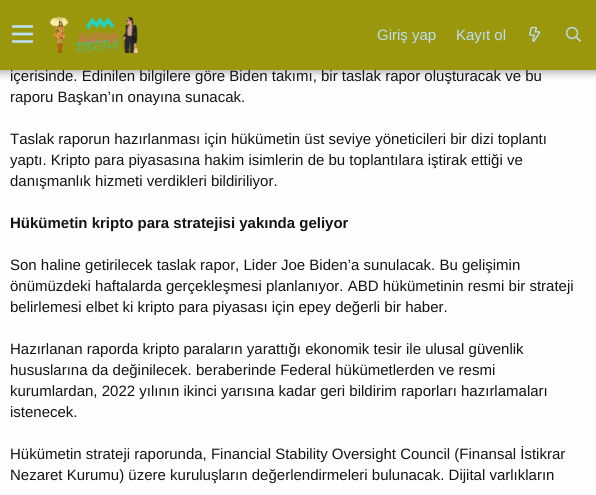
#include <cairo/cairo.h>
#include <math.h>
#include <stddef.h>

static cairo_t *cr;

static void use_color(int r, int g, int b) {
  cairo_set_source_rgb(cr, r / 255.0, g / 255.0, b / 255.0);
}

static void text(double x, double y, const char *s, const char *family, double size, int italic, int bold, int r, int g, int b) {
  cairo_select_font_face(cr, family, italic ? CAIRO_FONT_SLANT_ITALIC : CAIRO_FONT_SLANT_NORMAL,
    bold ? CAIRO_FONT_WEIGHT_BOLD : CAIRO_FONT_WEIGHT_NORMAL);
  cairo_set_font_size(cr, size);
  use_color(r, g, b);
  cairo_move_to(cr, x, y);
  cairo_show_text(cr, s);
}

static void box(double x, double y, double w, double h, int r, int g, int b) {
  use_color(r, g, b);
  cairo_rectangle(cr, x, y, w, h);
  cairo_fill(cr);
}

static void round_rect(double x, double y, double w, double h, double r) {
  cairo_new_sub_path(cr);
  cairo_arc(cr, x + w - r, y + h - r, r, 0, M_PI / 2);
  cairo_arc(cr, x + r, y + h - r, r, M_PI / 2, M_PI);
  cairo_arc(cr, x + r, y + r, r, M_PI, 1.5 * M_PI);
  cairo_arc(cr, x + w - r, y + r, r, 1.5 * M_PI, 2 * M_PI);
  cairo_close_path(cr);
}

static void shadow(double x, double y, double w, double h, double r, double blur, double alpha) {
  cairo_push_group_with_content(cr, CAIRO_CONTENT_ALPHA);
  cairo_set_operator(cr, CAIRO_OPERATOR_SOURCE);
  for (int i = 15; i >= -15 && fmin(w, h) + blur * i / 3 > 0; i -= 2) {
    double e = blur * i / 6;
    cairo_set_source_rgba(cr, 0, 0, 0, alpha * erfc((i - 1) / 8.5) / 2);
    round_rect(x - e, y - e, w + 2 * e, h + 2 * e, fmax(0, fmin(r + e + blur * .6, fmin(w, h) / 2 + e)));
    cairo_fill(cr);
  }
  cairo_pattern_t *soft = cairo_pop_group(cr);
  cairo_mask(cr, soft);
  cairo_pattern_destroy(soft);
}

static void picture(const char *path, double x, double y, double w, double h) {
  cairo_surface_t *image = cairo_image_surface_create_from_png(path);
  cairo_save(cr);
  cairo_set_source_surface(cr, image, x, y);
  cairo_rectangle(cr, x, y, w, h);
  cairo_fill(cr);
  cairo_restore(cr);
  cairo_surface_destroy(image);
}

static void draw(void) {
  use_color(254, 254, 254);
  cairo_paint(cr);
  use_color(0, 0, 0);
  shadow(-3, -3, 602, 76, 0, 4, 0.3);
  box(0, 0, 596, 70, 155, 151, 13);
  picture("img_01.png", 12, 25, 21, 18);
  picture("img_02.png", 49, 16, 89, 37);
  picture("img_03.png", 529, 26, 12, 16);
  picture("img_04.png", 566, 26, 15, 16);
  text(377, 40, "Giriş yap", "Liberation Sans", 15, 0, 0, 188, 222, 245);
  text(456, 40, "Kayıt ol", "Liberation Sans", 15, 0, 0, 188, 222, 245);
  text(10, 81, "içerisinde. Edinilen bilgilere göre Biden takımı, bir taslak rapor oluşturacak ve bu", "Liberation Sans", 15, 0, 0, 20, 20, 20);
  text(10, 102, "raporu Başkan’ın onayına sunacak.", "Liberation Sans", 15, 0, 0, 20, 20, 20);
  text(10, 144, "Taslak raporun hazırlanması için hükümetin üst seviye yöneticileri bir dizi toplantı", "Liberation Sans", 15, 0, 0, 20, 20, 20);
  text(10, 165, "yaptı. Kripto para piyasasına hakim isimlerin de bu toplantılara iştirak ettiği ve", "Liberation Sans", 15, 0, 0, 20, 20, 20);
  text(10, 186, "danışmanlık hizmeti verdikleri bildiriliyor.", "Liberation Sans", 15, 0, 0, 20, 20, 20);
  text(10, 228, "Hükümetin kripto para stratejisi yakında geliyor", "Liberation Sans", 15, 0, 1, 20, 20, 20);
  text(10, 270, "Son haline getirilecek taslak rapor, Lider Joe Biden’a sunulacak. Bu gelişimin", "Liberation Sans", 15, 0, 0, 20, 20, 20);
  text(10, 291, "önümüzdeki haftalarda gerçekleşmesi planlanıyor. ABD hükümetinin resmi bir strateji", "Liberation Sans", 15, 0, 0, 20, 20, 20);
  text(10, 312, "belirlemesi elbet ki kripto para piyasası için epey değerli bir haber.", "Liberation Sans", 15, 0, 0, 20, 20, 20);
  text(10, 354, "Hazırlanan raporda kripto paraların yarattığı ekonomik tesir ile ulusal güvenlik", "Liberation Sans", 15, 0, 0, 20, 20, 20);
  text(10, 375, "hususlarına da değinilecek. beraberinde Federal hükümetlerden ve resmi", "Liberation Sans", 15, 0, 0, 20, 20, 20);
  text(10, 396, "kurumlardan, 2022 yılının ikinci yarısına kadar geri bildirim raporları hazırlamaları", "Liberation Sans", 15, 0, 0, 20, 20, 20);
  text(10, 417, "istenecek.", "Liberation Sans", 15, 0, 0, 20, 20, 20);
  text(10, 459, "Hükümetin strateji raporunda, Financial Stability Oversight Council (Finansal İstikrar", "Liberation Sans", 15, 0, 0, 20, 20, 20);
  text(10, 480, "Nezaret Kurumu) üzere kuruluşların değerlendirmeleri bulunacak. Dijital varlıkların", "Liberation Sans", 15, 0, 0, 20, 20, 20);
}

int main(void) {
  cairo_surface_t *surface = cairo_image_surface_create(CAIRO_FORMAT_RGB24, 596, 495);
  cr = cairo_create(surface);
  cairo_font_options_t *options = cairo_font_options_create();
  cairo_font_options_set_hint_metrics(options, CAIRO_HINT_METRICS_OFF);
  cairo_font_options_set_hint_style(options, CAIRO_HINT_STYLE_NONE);
  cairo_set_font_options(cr, options);
  cairo_set_miter_limit(cr, 4);
  draw();
  cairo_surface_write_to_png(surface, "out.png");
  cairo_font_options_destroy(options);
  cairo_destroy(cr);
  cairo_surface_destroy(surface);
  return 0;
}
